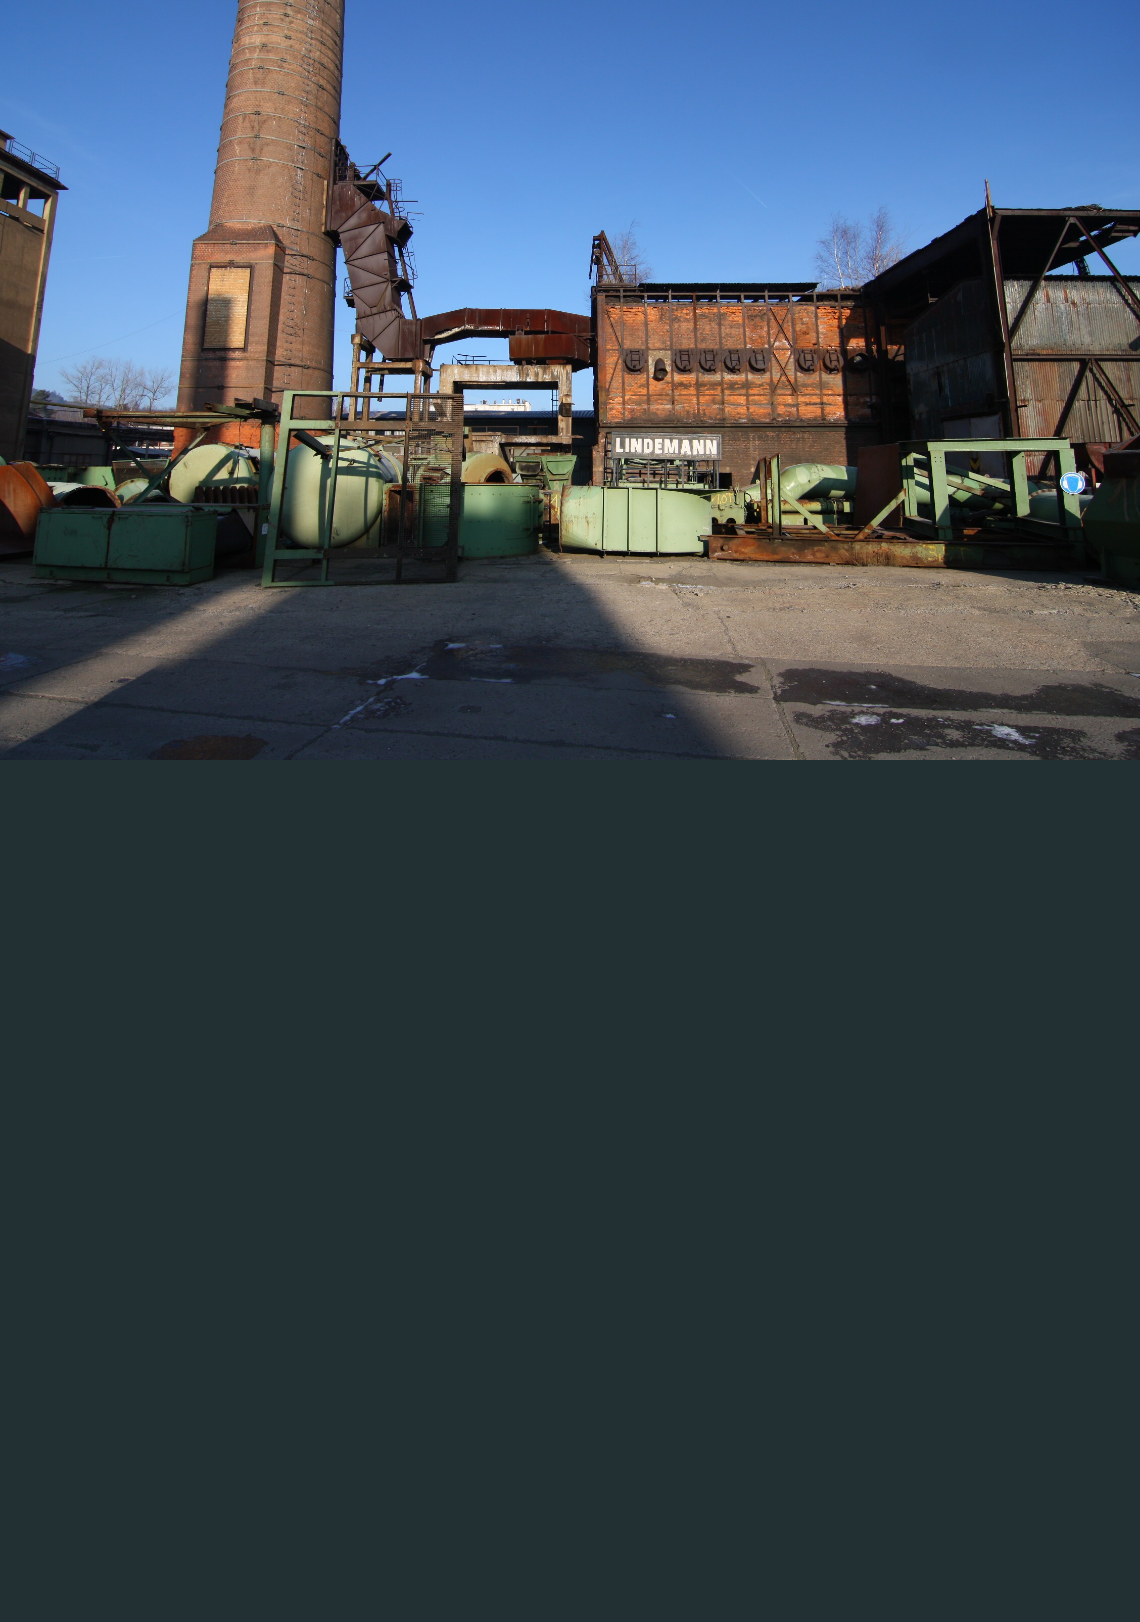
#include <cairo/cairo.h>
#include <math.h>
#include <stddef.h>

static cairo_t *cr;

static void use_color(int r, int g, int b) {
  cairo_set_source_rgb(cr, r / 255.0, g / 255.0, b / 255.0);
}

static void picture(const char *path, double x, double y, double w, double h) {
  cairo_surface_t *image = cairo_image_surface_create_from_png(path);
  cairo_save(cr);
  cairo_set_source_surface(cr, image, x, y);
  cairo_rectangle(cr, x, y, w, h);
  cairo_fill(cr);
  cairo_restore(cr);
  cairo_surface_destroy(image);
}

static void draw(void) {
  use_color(34, 48, 52);
  cairo_paint(cr);
  picture("img_01.png", 0, 0, 1140, 760);
}

int main(void) {
  cairo_surface_t *surface = cairo_image_surface_create(CAIRO_FORMAT_RGB24, 1140, 1622);
  cr = cairo_create(surface);
  cairo_font_options_t *options = cairo_font_options_create();
  cairo_font_options_set_hint_metrics(options, CAIRO_HINT_METRICS_OFF);
  cairo_font_options_set_hint_style(options, CAIRO_HINT_STYLE_NONE);
  cairo_set_font_options(cr, options);
  cairo_set_miter_limit(cr, 4);
  draw();
  cairo_surface_write_to_png(surface, "out.png");
  cairo_font_options_destroy(options);
  cairo_destroy(cr);
  cairo_surface_destroy(surface);
  return 0;
}
